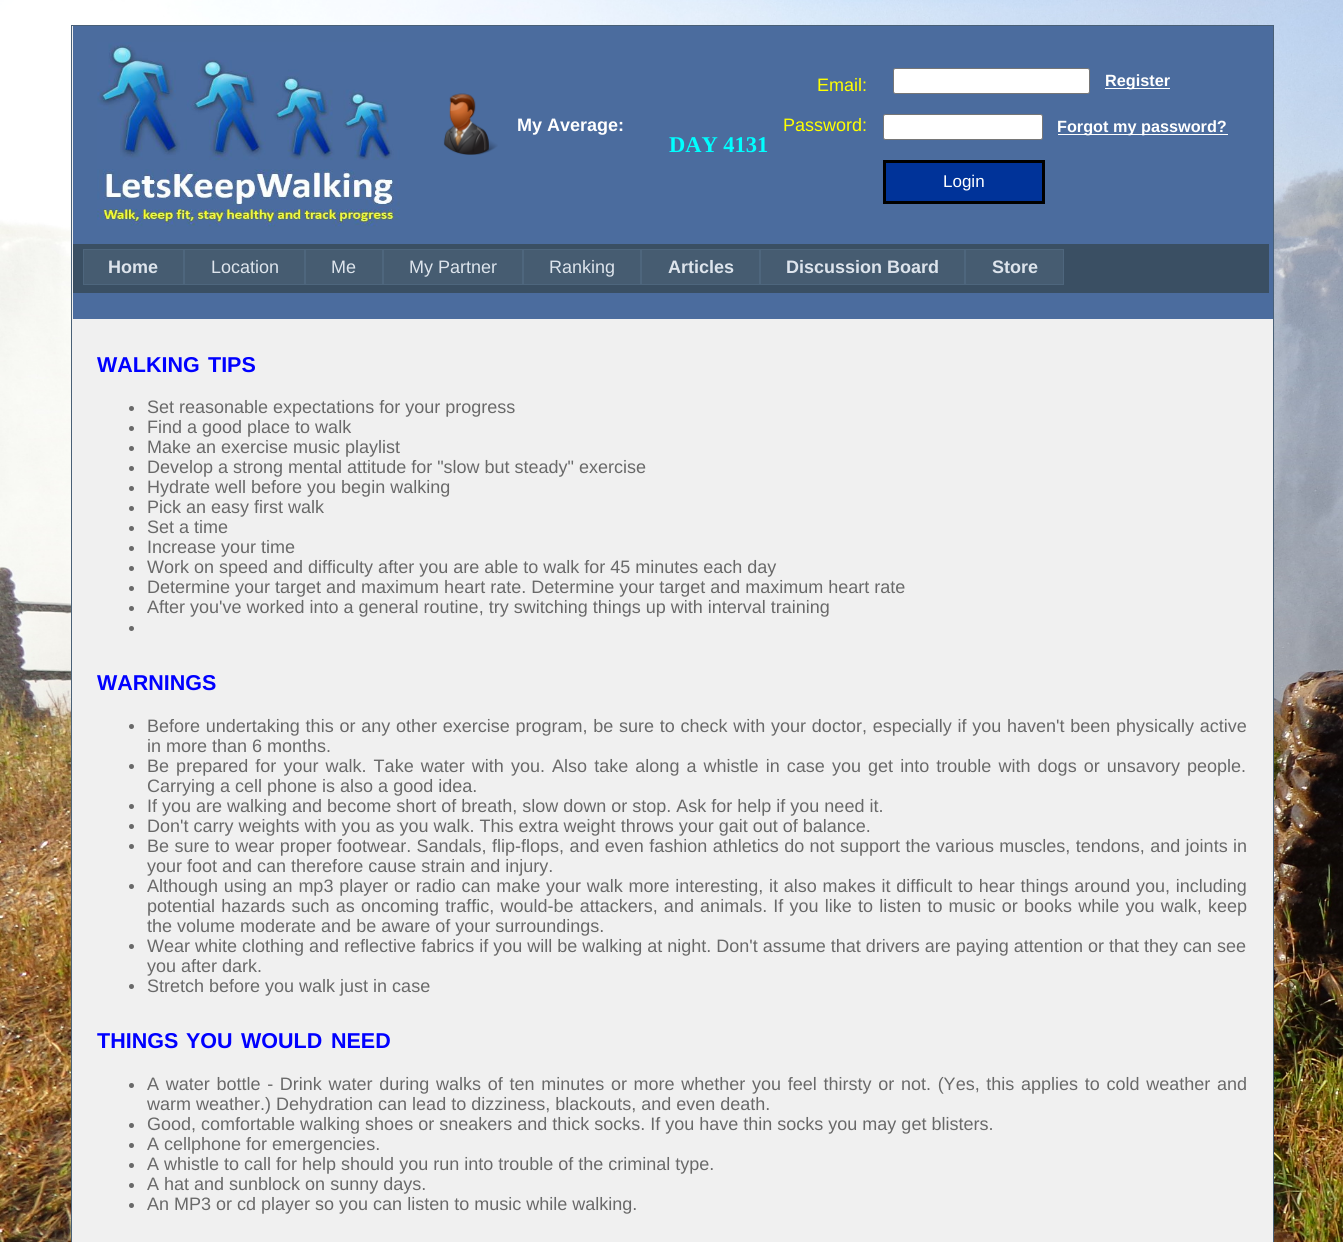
#include <cairo/cairo.h>
#include <math.h>
#include <stddef.h>

static cairo_t *cr;

static void use_color(int r, int g, int b) {
  cairo_set_source_rgb(cr, r / 255.0, g / 255.0, b / 255.0);
}

static void text(double x, double y, const char *s, const char *family, double size, int italic, int bold, int r, int g, int b) {
  cairo_select_font_face(cr, family, italic ? CAIRO_FONT_SLANT_ITALIC : CAIRO_FONT_SLANT_NORMAL,
    bold ? CAIRO_FONT_WEIGHT_BOLD : CAIRO_FONT_WEIGHT_NORMAL);
  cairo_set_font_size(cr, size);
  use_color(r, g, b);
  cairo_move_to(cr, x, y);
  cairo_show_text(cr, s);
}

static void spaced_text(double x, double y, const char *s, double letter, double word) {
  cairo_move_to(cr, x, y);
  while (*s) {
    char ch[5] = {0};
    int n = 0;
    do ch[n++] = *s++; while ((*s & 0xC0) == 0x80);
    cairo_show_text(cr, ch);
    cairo_rel_move_to(cr, letter + word * (*ch == ' '), 0);
  }
}

static void box(double x, double y, double w, double h, int r, int g, int b) {
  use_color(r, g, b);
  cairo_rectangle(cr, x, y, w, h);
  cairo_fill(cr);
}

static void round_rect(double x, double y, double w, double h, double r) {
  cairo_new_sub_path(cr);
  cairo_arc(cr, x + w - r, y + h - r, r, 0, M_PI / 2);
  cairo_arc(cr, x + r, y + h - r, r, M_PI / 2, M_PI);
  cairo_arc(cr, x + r, y + r, r, M_PI, 1.5 * M_PI);
  cairo_arc(cr, x + w - r, y + r, r, 1.5 * M_PI, 2 * M_PI);
  cairo_close_path(cr);
}

static void picture(const char *path, double x, double y, double w, double h) {
  cairo_surface_t *image = cairo_image_surface_create_from_png(path);
  cairo_save(cr);
  cairo_set_source_surface(cr, image, x, y);
  cairo_rectangle(cr, x, y, w, h);
  cairo_fill(cr);
  cairo_restore(cr);
  cairo_surface_destroy(image);
}

static void draw(void) {
  use_color(255, 255, 255);
  cairo_paint(cr);
  picture("img_01.png", 0, 0, 1343, 1242);
  use_color(240, 240, 240);
  cairo_rectangle(cr, 71.5, 25.5, 1202, 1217);
  cairo_fill_preserve(cr);
  use_color(73, 96, 119);
  cairo_set_line_width(cr, 1);
  cairo_stroke(cr);
  box(73, 26, 1200, 293, 75, 108, 158);
  picture("img_02.png", 97, 42, 303, 185);
  picture("img_03.png", 443, 93, 55, 62);
  use_color(255, 255, 255);
  round_rect(893.5, 68.5, 196, 25, 2);
  cairo_fill_preserve(cr);
  use_color(118, 118, 118);
  cairo_stroke(cr);
  box(1105, 88, 65, 1, 255, 255, 255);
  round_rect(883.5, 114.5, 159, 25, 2);
  cairo_fill_preserve(cr);
  use_color(118, 118, 118);
  cairo_stroke(cr);
  box(1058, 134, 170, 1, 255, 255, 255);
  use_color(0, 51, 153);
  cairo_rectangle(cr, 884.5, 161.5, 159, 41);
  cairo_fill_preserve(cr);
  use_color(0, 0, 0);
  cairo_set_line_width(cr, 3);
  cairo_stroke(cr);
  box(73, 244, 1196, 49, 58, 79, 99);
  use_color(70, 92, 113);
  cairo_rectangle(cr, 83.5, 249.5, 100, 35);
  cairo_fill_preserve(cr);
  use_color(78, 102, 125);
  cairo_set_line_width(cr, 1);
  cairo_stroke(cr);
  use_color(70, 92, 113);
  cairo_rectangle(cr, 184.5, 249.5, 120, 35);
  cairo_fill_preserve(cr);
  use_color(78, 102, 125);
  cairo_stroke(cr);
  use_color(70, 92, 113);
  cairo_rectangle(cr, 305.5, 249.5, 77, 35);
  cairo_fill_preserve(cr);
  use_color(78, 102, 125);
  cairo_stroke(cr);
  use_color(70, 92, 113);
  cairo_rectangle(cr, 383.5, 249.5, 139, 35);
  cairo_fill_preserve(cr);
  use_color(78, 102, 125);
  cairo_stroke(cr);
  use_color(70, 92, 113);
  cairo_rectangle(cr, 523.5, 249.5, 117, 35);
  cairo_fill_preserve(cr);
  use_color(78, 102, 125);
  cairo_stroke(cr);
  use_color(70, 92, 113);
  cairo_rectangle(cr, 641.5, 249.5, 118, 35);
  cairo_fill_preserve(cr);
  use_color(78, 102, 125);
  cairo_stroke(cr);
  use_color(70, 92, 113);
  cairo_rectangle(cr, 760.5, 249.5, 204, 35);
  cairo_fill_preserve(cr);
  use_color(78, 102, 125);
  cairo_stroke(cr);
  use_color(70, 92, 113);
  cairo_rectangle(cr, 965.5, 249.5, 98, 35);
  cairo_fill_preserve(cr);
  use_color(78, 102, 125);
  cairo_stroke(cr);
  use_color(105, 105, 105);
  cairo_arc(cr, 131.5, 408.5, 2.5, 0, 2 * M_PI);
  cairo_fill(cr);
  cairo_arc(cr, 131.5, 428.5, 2.5, 0, 2 * M_PI);
  cairo_fill(cr);
  cairo_arc(cr, 131.5, 448.5, 2.5, 0, 2 * M_PI);
  cairo_fill(cr);
  cairo_arc(cr, 131.5, 468.5, 2.5, 0, 2 * M_PI);
  cairo_fill(cr);
  cairo_arc(cr, 131.5, 488.5, 2.5, 0, 2 * M_PI);
  cairo_fill(cr);
  cairo_arc(cr, 131.5, 508.5, 2.5, 0, 2 * M_PI);
  cairo_fill(cr);
  cairo_arc(cr, 131.5, 528.5, 2.5, 0, 2 * M_PI);
  cairo_fill(cr);
  cairo_arc(cr, 131.5, 548.5, 2.5, 0, 2 * M_PI);
  cairo_fill(cr);
  cairo_arc(cr, 131.5, 568.5, 2.5, 0, 2 * M_PI);
  cairo_fill(cr);
  cairo_arc(cr, 131.5, 588.5, 2.5, 0, 2 * M_PI);
  cairo_fill(cr);
  cairo_arc(cr, 131.5, 608.5, 2.5, 0, 2 * M_PI);
  cairo_fill(cr);
  cairo_arc(cr, 131.5, 628.5, 2.5, 0, 2 * M_PI);
  cairo_fill(cr);
  cairo_arc(cr, 131.5, 726.5, 2.5, 0, 2 * M_PI);
  cairo_fill(cr);
  cairo_arc(cr, 131.5, 766.5, 2.5, 0, 2 * M_PI);
  cairo_fill(cr);
  cairo_arc(cr, 131.5, 806.5, 2.5, 0, 2 * M_PI);
  cairo_fill(cr);
  cairo_arc(cr, 131.5, 826.5, 2.5, 0, 2 * M_PI);
  cairo_fill(cr);
  cairo_arc(cr, 131.5, 846.5, 2.5, 0, 2 * M_PI);
  cairo_fill(cr);
  cairo_arc(cr, 131.5, 886.5, 2.5, 0, 2 * M_PI);
  cairo_fill(cr);
  cairo_arc(cr, 131.5, 946.5, 2.5, 0, 2 * M_PI);
  cairo_fill(cr);
  cairo_arc(cr, 131.5, 986.5, 2.5, 0, 2 * M_PI);
  cairo_fill(cr);
  cairo_arc(cr, 131.5, 1085.5, 2.5, 0, 2 * M_PI);
  cairo_fill(cr);
  cairo_arc(cr, 131.5, 1125.5, 2.5, 0, 2 * M_PI);
  cairo_fill(cr);
  cairo_arc(cr, 131.5, 1145.5, 2.5, 0, 2 * M_PI);
  cairo_fill(cr);
  cairo_arc(cr, 131.5, 1165.5, 2.5, 0, 2 * M_PI);
  cairo_fill(cr);
  cairo_arc(cr, 131.5, 1185.5, 2.5, 0, 2 * M_PI);
  cairo_fill(cr);
  cairo_arc(cr, 131.5, 1205.5, 2.5, 0, 2 * M_PI);
  cairo_fill(cr);
  text(517, 131, "My Average:", "Liberation Sans", 18, 0, 1, 255, 255, 255);
  text(817, 91, "Email:", "Liberation Sans", 18, 0, 0, 255, 255, 0);
  text(783, 131, "Password:", "Liberation Sans", 18, 0, 0, 255, 255, 0);
  text(1105, 86, "Register", "Liberation Sans", 16.25, 0, 1, 255, 255, 255);
  text(1057, 132, "Forgot my password?", "Liberation Sans", 16.25, 0, 1, 255, 255, 255);
  text(943, 187, "Login", "Liberation Sans", 17, 0, 0, 255, 255, 255);
  text(669, 152, "DAY 4131", "Liberation Serif", 22.5, 0, 1, 0, 255, 255);
  text(108, 273, "Home", "Liberation Sans", 18, 0, 1, 221, 228, 236);
  text(211, 273, "Location", "Liberation Sans", 18, 0, 0, 221, 228, 236);
  text(331, 273, "Me", "Liberation Sans", 18, 0, 0, 221, 228, 236);
  text(409, 273, "My Partner", "Liberation Sans", 18, 0, 0, 221, 228, 236);
  text(549, 273, "Ranking", "Liberation Sans", 18, 0, 0, 221, 228, 236);
  text(668, 273, "Articles", "Liberation Sans", 18, 0, 1, 221, 228, 236);
  text(786, 273, "Discussion Board", "Liberation Sans", 18, 0, 1, 221, 228, 236);
  text(992, 273, "Store", "Liberation Sans", 18, 0, 1, 221, 228, 236);
  text(97, 372, "WALKING", "Liberation Sans", 21.5, 0, 1, 0, 0, 255);
  text(208, 372, "TIPS", "Liberation Sans", 21.5, 0, 1, 0, 0, 255);
  text(147, 413, "Set reasonable expectations for your progress", "Liberation Sans", 18, 0, 0, 105, 105, 105);
  text(147, 433, "Find a good place to walk", "Liberation Sans", 18, 0, 0, 105, 105, 105);
  text(147, 453, "Make an exercise music playlist", "Liberation Sans", 18, 0, 0, 105, 105, 105);
  text(147, 473, "Develop a strong mental attitude for \"slow but steady\" exercise", "Liberation Sans", 18, 0, 0, 105, 105, 105);
  text(147, 493, "Hydrate well before you begin walking", "Liberation Sans", 18, 0, 0, 105, 105, 105);
  text(147, 513, "Pick an easy first walk", "Liberation Sans", 18, 0, 0, 105, 105, 105);
  text(147, 533, "Set a time", "Liberation Sans", 18, 0, 0, 105, 105, 105);
  text(147, 553, "Increase your time", "Liberation Sans", 18, 0, 0, 105, 105, 105);
  text(147, 573, "Work on speed and difficulty after you are able to walk for 45 minutes each day", "Liberation Sans", 18, 0, 0, 105, 105, 105);
  text(147, 593, "Determine your target and maximum heart rate. Determine your target and maximum heart rate", "Liberation Sans", 18, 0, 0, 105, 105, 105);
  text(147, 613, "After you've worked into a general routine, try switching things up with interval training", "Liberation Sans", 18, 0, 0, 105, 105, 105);
  text(97, 690, "WARNINGS", "Liberation Sans", 21.5, 0, 1, 0, 0, 255);
  cairo_select_font_face(cr, "Liberation Sans", CAIRO_FONT_SLANT_NORMAL, CAIRO_FONT_WEIGHT_NORMAL);
  cairo_set_font_size(cr, 18);
  use_color(105, 105, 105);
  spaced_text(147, 732, "Before undertaking this or any other exercise program, be sure to check with your doctor, especially if you haven't been physically active", 0, 0.75);
  text(147, 752, "in more than 6 months.", "Liberation Sans", 18, 0, 0, 105, 105, 105);
  spaced_text(147, 772, "Be prepared for your walk. Take water with you. Also take along a whistle in case you get into trouble with dogs or unsavory people.", 0, 2.1);
  text(147, 792, "Carrying a cell phone is also a good idea.", "Liberation Sans", 18, 0, 0, 105, 105, 105);
  text(147, 812, "If you are walking and become short of breath, slow down or stop. Ask for help if you need it.", "Liberation Sans", 18, 0, 0, 105, 105, 105);
  text(147, 832, "Don't carry weights with you as you walk. This extra weight throws your gait out of balance.", "Liberation Sans", 18, 0, 0, 105, 105, 105);
  spaced_text(147, 852, "Be sure to wear proper footwear. Sandals, flip-flops, and even fashion athletics do not support the various muscles, tendons, and joints in", 0, 0.4);
  text(147, 872, "your foot and can therefore cause strain and injury.", "Liberation Sans", 18, 0, 0, 105, 105, 105);
  spaced_text(147, 892, "Although using an mp3 player or radio can make your walk more interesting, it also makes it difficult to hear things around you, including", 0, 0.75);
  spaced_text(147, 912, "potential hazards such as oncoming traffic, would-be attackers, and animals. If you like to listen to music or books while you walk, keep", 0, 1.2);
  text(147, 932, "the volume moderate and be aware of your surroundings.", "Liberation Sans", 18, 0, 0, 105, 105, 105);
  text(147, 952, "Wear white clothing and reflective fabrics if you will be walking at night. Don't assume that drivers are paying attention or that they can see", "Liberation Sans", 18, 0, 0, 105, 105, 105);
  text(147, 972, "you after dark.", "Liberation Sans", 18, 0, 0, 105, 105, 105);
  text(147, 992, "Stretch before you walk just in case", "Liberation Sans", 18, 0, 0, 105, 105, 105);
  text(97, 1048, "THINGS", "Liberation Sans", 21.5, 0, 1, 0, 0, 255);
  text(186, 1048, "YOU", "Liberation Sans", 21.5, 0, 1, 0, 0, 255);
  text(241, 1048, "WOULD", "Liberation Sans", 21.5, 0, 1, 0, 0, 255);
  text(331, 1048, "NEED", "Liberation Sans", 21.5, 0, 1, 0, 0, 255);
  cairo_select_font_face(cr, "Liberation Sans", CAIRO_FONT_SLANT_NORMAL, CAIRO_FONT_WEIGHT_NORMAL);
  cairo_set_font_size(cr, 18);
  use_color(105, 105, 105);
  spaced_text(147, 1090, "A water bottle - Drink water during walks of ten minutes or more whether you feel thirsty or not. (Yes, this applies to cold weather and", 0, 1.7);
  text(147, 1110, "warm weather.) Dehydration can lead to dizziness, blackouts, and even death.", "Liberation Sans", 18, 0, 0, 105, 105, 105);
  text(147, 1130, "Good, comfortable walking shoes or sneakers and thick socks. If you have thin socks you may get blisters.", "Liberation Sans", 18, 0, 0, 105, 105, 105);
  text(147, 1150, "A cellphone for emergencies.", "Liberation Sans", 18, 0, 0, 105, 105, 105);
  text(147, 1170, "A whistle to call for help should you run into trouble of the criminal type.", "Liberation Sans", 18, 0, 0, 105, 105, 105);
  text(147, 1190, "A hat and sunblock on sunny days.", "Liberation Sans", 18, 0, 0, 105, 105, 105);
  text(147, 1210, "An MP3 or cd player so you can listen to music while walking.", "Liberation Sans", 18, 0, 0, 105, 105, 105);
}

int main(void) {
  cairo_surface_t *surface = cairo_image_surface_create(CAIRO_FORMAT_RGB24, 1343, 1242);
  cr = cairo_create(surface);
  cairo_font_options_t *options = cairo_font_options_create();
  cairo_font_options_set_hint_metrics(options, CAIRO_HINT_METRICS_OFF);
  cairo_font_options_set_hint_style(options, CAIRO_HINT_STYLE_NONE);
  cairo_set_font_options(cr, options);
  cairo_set_miter_limit(cr, 4);
  draw();
  cairo_surface_write_to_png(surface, "out.png");
  cairo_font_options_destroy(options);
  cairo_destroy(cr);
  cairo_surface_destroy(surface);
  return 0;
}
